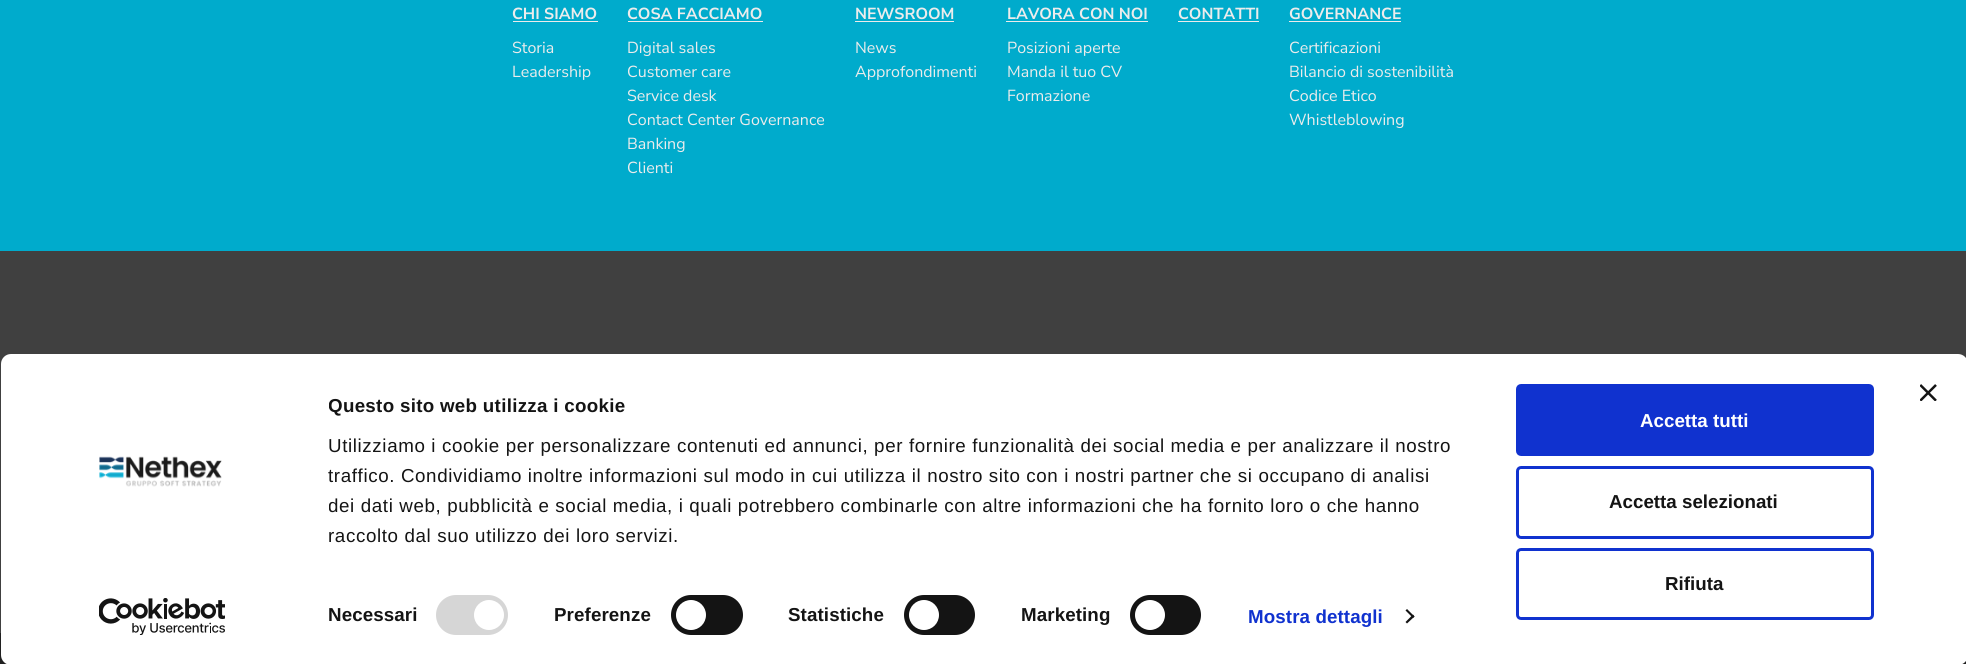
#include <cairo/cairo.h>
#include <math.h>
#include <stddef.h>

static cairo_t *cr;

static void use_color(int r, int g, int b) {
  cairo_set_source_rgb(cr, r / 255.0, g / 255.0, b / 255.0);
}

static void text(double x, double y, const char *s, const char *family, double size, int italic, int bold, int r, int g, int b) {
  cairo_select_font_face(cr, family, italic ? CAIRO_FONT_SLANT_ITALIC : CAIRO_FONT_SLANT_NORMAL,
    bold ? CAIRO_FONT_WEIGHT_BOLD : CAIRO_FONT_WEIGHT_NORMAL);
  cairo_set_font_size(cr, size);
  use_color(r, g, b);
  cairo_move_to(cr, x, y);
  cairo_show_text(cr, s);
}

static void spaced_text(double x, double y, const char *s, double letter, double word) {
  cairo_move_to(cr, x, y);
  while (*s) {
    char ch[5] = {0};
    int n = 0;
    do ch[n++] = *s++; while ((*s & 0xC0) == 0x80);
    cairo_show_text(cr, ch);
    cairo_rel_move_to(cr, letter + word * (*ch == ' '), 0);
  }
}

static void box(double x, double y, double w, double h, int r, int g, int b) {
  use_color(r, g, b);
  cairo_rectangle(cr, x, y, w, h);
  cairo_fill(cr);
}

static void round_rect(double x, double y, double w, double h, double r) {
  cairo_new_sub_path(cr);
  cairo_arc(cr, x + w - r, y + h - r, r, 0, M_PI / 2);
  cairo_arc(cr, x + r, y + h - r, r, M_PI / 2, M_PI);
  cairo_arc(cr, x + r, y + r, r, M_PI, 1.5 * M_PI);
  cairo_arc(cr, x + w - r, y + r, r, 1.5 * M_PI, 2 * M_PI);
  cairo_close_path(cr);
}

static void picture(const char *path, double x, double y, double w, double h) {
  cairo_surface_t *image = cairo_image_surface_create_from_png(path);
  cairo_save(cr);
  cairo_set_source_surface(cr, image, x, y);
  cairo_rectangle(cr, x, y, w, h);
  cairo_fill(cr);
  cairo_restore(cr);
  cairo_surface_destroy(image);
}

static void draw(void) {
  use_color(64, 64, 64);
  cairo_paint(cr);
  box(0, 0, 1966, 251, 0, 171, 204);
  box(513, 21, 85, 1, 236, 236, 236);
  box(628, 21, 135, 1, 236, 236, 236);
  box(855, 21, 99, 1, 236, 236, 236);
  box(1006, 21, 142, 1, 236, 236, 236);
  box(1178, 21, 81, 1, 236, 236, 236);
  box(1289, 21, 112, 1, 236, 236, 236);
  box(0, 633, 1966, 31, 32, 32, 32);
  use_color(255, 255, 255);
  round_rect(1, 354, 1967, 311, 10);
  cairo_fill(cr);
  picture("img_01.png", 1920, 384, 17, 17);
  picture("img_02.png", 99, 456, 123, 31);
  picture("img_03.png", 99, 598, 126, 37);
  use_color(214, 214, 214);
  round_rect(436, 595, 72, 40, 20);
  cairo_fill(cr);
  use_color(255, 255, 255);
  cairo_arc(cr, 489, 615, 15, 0, 2 * M_PI);
  cairo_fill(cr);
  use_color(20, 20, 20);
  round_rect(671, 595, 72, 40, 20);
  cairo_fill(cr);
  use_color(255, 255, 255);
  cairo_arc(cr, 691, 615, 15, 0, 2 * M_PI);
  cairo_fill(cr);
  use_color(20, 20, 20);
  round_rect(904, 595, 71, 40, 20);
  cairo_fill(cr);
  use_color(255, 255, 255);
  cairo_arc(cr, 924, 615, 15, 0, 2 * M_PI);
  cairo_fill(cr);
  use_color(20, 20, 20);
  round_rect(1130, 595, 71, 40, 20);
  cairo_fill(cr);
  use_color(255, 255, 255);
  cairo_arc(cr, 1150, 615, 15, 0, 2 * M_PI);
  cairo_fill(cr);
  use_color(20, 20, 20);
  cairo_new_path(cr);
  cairo_move_to(cr, 1407, 609);
  cairo_line_to(cr, 1414.5, 616.5);
  cairo_line_to(cr, 1413, 618);
  cairo_line_to(cr, 1405.5, 610.5);
  cairo_close_path(cr);
  cairo_fill(cr);
  cairo_new_path(cr);
  cairo_move_to(cr, 1413, 614.5);
  cairo_line_to(cr, 1414.5, 616.5);
  cairo_line_to(cr, 1407, 623.5);
  cairo_line_to(cr, 1405.5, 622);
  cairo_close_path(cr);
  cairo_fill(cr);
  use_color(16, 50, 207);
  round_rect(1517.5, 385.5, 355, 69, 3.5);
  cairo_fill_preserve(cr);
  cairo_set_line_width(cr, 3);
  cairo_stroke(cr);
  round_rect(1517.5, 467.5, 355, 70, 3.5);
  cairo_stroke(cr);
  round_rect(1517.5, 549.5, 355, 69, 3.5);
  cairo_stroke(cr);
  text(512, 19, "CHI SIAMO", "Nunito Sans", 16, 0, 1, 236, 236, 236);
  text(512, 53, "Storia", "Nunito Sans", 16, 0, 0, 236, 236, 236);
  text(512, 77, "Leadership", "Nunito Sans", 16, 0, 0, 236, 236, 236);
  text(627, 19, "COSA FACCIAMO", "Nunito Sans", 16, 0, 1, 236, 236, 236);
  text(627, 53, "Digital sales", "Nunito Sans", 16, 0, 0, 236, 236, 236);
  text(627, 77, "Customer care", "Nunito Sans", 16, 0, 0, 236, 236, 236);
  text(627, 101, "Service desk", "Nunito Sans", 16, 0, 0, 236, 236, 236);
  text(627, 125, "Contact Center Governance", "Nunito Sans", 16, 0, 0, 236, 236, 236);
  text(627, 149, "Banking", "Nunito Sans", 16, 0, 0, 236, 236, 236);
  text(627, 173, "Clienti", "Nunito Sans", 16, 0, 0, 236, 236, 236);
  text(855, 19, "NEWSROOM", "Nunito Sans", 16, 0, 1, 236, 236, 236);
  text(855, 53, "News", "Nunito Sans", 16, 0, 0, 236, 236, 236);
  text(855, 77, "Approfondimenti", "Nunito Sans", 16, 0, 0, 236, 236, 236);
  text(1007, 19, "LAVORA CON NOI", "Nunito Sans", 16, 0, 1, 236, 236, 236);
  text(1007, 53, "Posizioni aperte", "Nunito Sans", 16, 0, 0, 236, 236, 236);
  text(1007, 77, "Manda il tuo CV", "Nunito Sans", 16, 0, 0, 236, 236, 236);
  text(1007, 101, "Formazione", "Nunito Sans", 16, 0, 0, 236, 236, 236);
  text(1178, 19, "CONTATTI", "Nunito Sans", 16, 0, 1, 236, 236, 236);
  text(1289, 19, "GOVERNANCE", "Nunito Sans", 16, 0, 1, 236, 236, 236);
  text(1289, 53, "Certificazioni", "Nunito Sans", 16, 0, 0, 236, 236, 236);
  text(1289, 77, "Bilancio di sostenibilità", "Nunito Sans", 16, 0, 0, 236, 236, 236);
  text(1289, 101, "Codice Etico", "Nunito Sans", 16, 0, 0, 236, 236, 236);
  text(1289, 125, "Whistleblowing", "Nunito Sans", 16, 0, 0, 236, 236, 236);
  cairo_save(cr);
  cairo_rectangle(cr, 329, 391, 1151, 159);
  cairo_clip(cr);
  cairo_select_font_face(cr, "Liberation Sans", CAIRO_FONT_SLANT_NORMAL, CAIRO_FONT_WEIGHT_BOLD);
  cairo_set_font_size(cr, 18.75);
  use_color(20, 20, 20);
  spaced_text(328, 412, "Questo sito web utilizza i cookie", 0.3, 0);
  cairo_restore(cr);
  cairo_select_font_face(cr, "Liberation Sans", CAIRO_FONT_SLANT_NORMAL, CAIRO_FONT_WEIGHT_NORMAL);
  cairo_set_font_size(cr, 18.75);
  use_color(20, 20, 20);
  spaced_text(328, 452, "Utilizziamo i cookie per personalizzare contenuti ed annunci, per fornire funzionalità dei social media e per analizzare il nostro", 0.62, 0);
  spaced_text(328, 482, "traffico. Condividiamo inoltre informazioni sul modo in cui utilizza il nostro sito con i nostri partner che si occupano di analisi", 0.62, 0);
  cairo_save(cr);
  cairo_rectangle(cr, 329, 391, 1151, 159);
  cairo_clip(cr);
  spaced_text(328, 512, "dei dati web, pubblicità e social media, i quali potrebbero combinarle con altre informazioni che ha fornito loro o che hanno", 0.62, 0);
  cairo_restore(cr);
  spaced_text(328, 542, "raccolto dal suo utilizzo dei loro servizi.", 0.62, 0);
  cairo_select_font_face(cr, "Liberation Sans", CAIRO_FONT_SLANT_NORMAL, CAIRO_FONT_WEIGHT_BOLD);
  spaced_text(328, 621, "Necessari", 0.1, 0);
  spaced_text(554, 621, "Preferenze", 0.1, 0);
  spaced_text(788, 621, "Statistiche", 0.1, 0);
  spaced_text(1021, 621, "Marketing", 0.1, 0);
  use_color(16, 50, 207);
  spaced_text(1248, 623, "Mostra dettagli", 0.1, 0);
  text(1640, 427, "Accetta tutti", "Liberation Sans", 18.75, 0, 1, 255, 255, 255);
  text(1609, 508, "Accetta selezionati", "Liberation Sans", 18.75, 0, 1, 20, 20, 20);
  text(1665, 590, "Rifiuta", "Liberation Sans", 18.75, 0, 1, 20, 20, 20);
}

int main(void) {
  cairo_surface_t *surface = cairo_image_surface_create(CAIRO_FORMAT_RGB24, 1966, 664);
  cr = cairo_create(surface);
  cairo_font_options_t *options = cairo_font_options_create();
  cairo_font_options_set_hint_metrics(options, CAIRO_HINT_METRICS_OFF);
  cairo_font_options_set_hint_style(options, CAIRO_HINT_STYLE_NONE);
  cairo_set_font_options(cr, options);
  cairo_set_miter_limit(cr, 4);
  draw();
  cairo_surface_write_to_png(surface, "out.png");
  cairo_font_options_destroy(options);
  cairo_destroy(cr);
  cairo_surface_destroy(surface);
  return 0;
}
